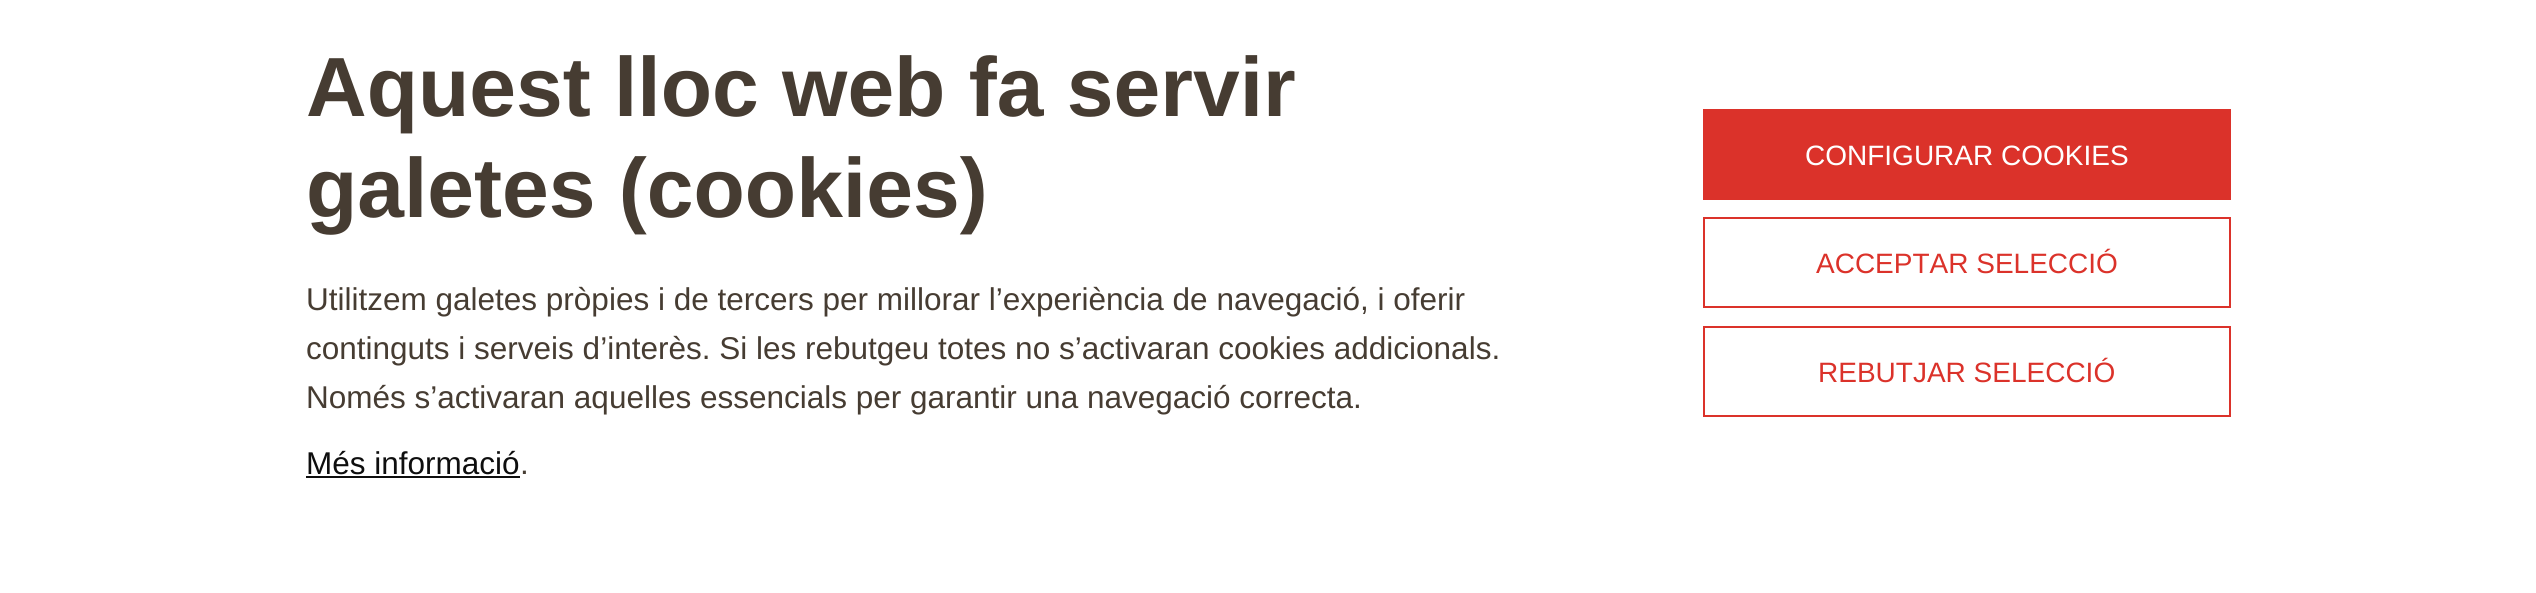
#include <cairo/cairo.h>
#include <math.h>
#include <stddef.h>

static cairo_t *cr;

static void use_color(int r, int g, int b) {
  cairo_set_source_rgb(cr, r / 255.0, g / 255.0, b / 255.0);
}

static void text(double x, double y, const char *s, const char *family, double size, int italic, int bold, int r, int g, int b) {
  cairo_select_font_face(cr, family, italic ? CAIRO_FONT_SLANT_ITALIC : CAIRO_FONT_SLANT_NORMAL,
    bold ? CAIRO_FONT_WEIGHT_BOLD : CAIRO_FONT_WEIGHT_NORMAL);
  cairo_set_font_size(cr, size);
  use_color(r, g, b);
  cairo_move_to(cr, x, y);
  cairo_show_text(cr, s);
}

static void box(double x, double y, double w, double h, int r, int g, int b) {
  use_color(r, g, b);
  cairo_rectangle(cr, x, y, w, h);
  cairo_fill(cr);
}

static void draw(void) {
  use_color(255, 255, 255);
  cairo_paint(cr);
  box(306, 476, 214, 2, 14, 14, 14);
  box(1703, 109, 528, 91, 219, 50, 42);
  cairo_rectangle(cr, 1704, 218, 526, 89);
  cairo_stroke(cr);
  cairo_rectangle(cr, 1704, 327, 526, 89);
  cairo_stroke(cr);
  text(306, 116, "Aquest lloc web fa servir", "Liberation Sans", 84, 0, 1, 70, 60, 50);
  text(306, 217, "galetes (cookies)", "Liberation Sans", 84, 0, 1, 70, 60, 50);
  text(306, 310, "Utilitzem galetes pròpies i de tercers per millorar l’experiència de navegació, i oferir", "Liberation Sans", 31.5, 0, 0, 70, 60, 50);
  text(306, 359, "continguts i serveis d’interès. Si les rebutgeu totes no s’activaran cookies addicionals.", "Liberation Sans", 31.5, 0, 0, 70, 60, 50);
  text(306, 408, "Només s’activaran aquelles essencials per garantir una navegació correcta.", "Liberation Sans", 31.5, 0, 0, 70, 60, 50);
  text(306, 474, "Més informació", "Liberation Sans", 31.5, 0, 0, 14, 14, 14);
  text(520, 474, ".", "Liberation Sans", 31.5, 0, 0, 70, 60, 50);
  text(1805, 165, "CONFIGURAR COOKIES", "Liberation Sans", 28, 0, 0, 255, 255, 255);
  text(1816, 273, "ACCEPTAR SELECCIÓ", "Liberation Sans", 28, 0, 0, 219, 50, 42);
  text(1818, 382, "REBUTJAR SELECCIÓ", "Liberation Sans", 28, 0, 0, 219, 50, 42);
}

int main(void) {
  cairo_surface_t *surface = cairo_image_surface_create(CAIRO_FORMAT_RGB24, 2536, 593);
  cr = cairo_create(surface);
  cairo_font_options_t *options = cairo_font_options_create();
  cairo_font_options_set_hint_metrics(options, CAIRO_HINT_METRICS_OFF);
  cairo_font_options_set_hint_style(options, CAIRO_HINT_STYLE_NONE);
  cairo_set_font_options(cr, options);
  cairo_set_miter_limit(cr, 4);
  draw();
  cairo_surface_write_to_png(surface, "out.png");
  cairo_font_options_destroy(options);
  cairo_destroy(cr);
  cairo_surface_destroy(surface);
  return 0;
}
